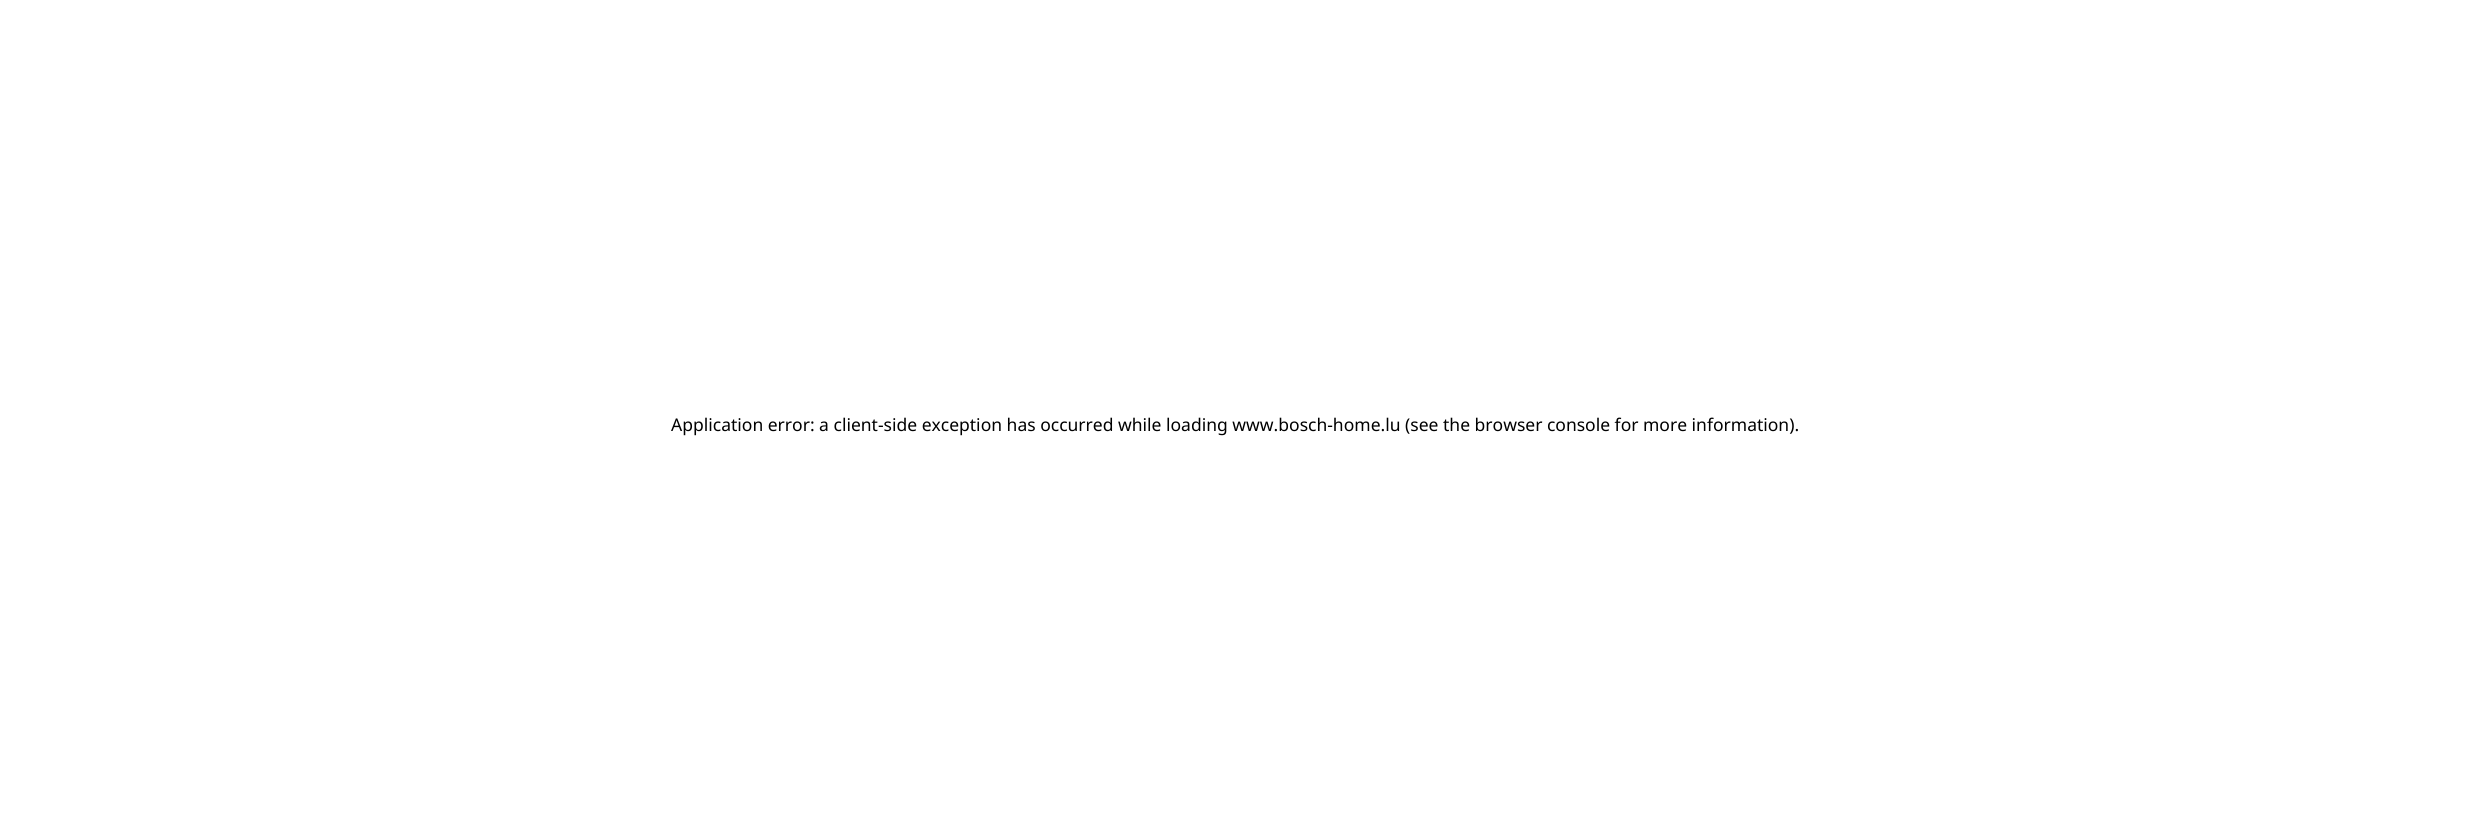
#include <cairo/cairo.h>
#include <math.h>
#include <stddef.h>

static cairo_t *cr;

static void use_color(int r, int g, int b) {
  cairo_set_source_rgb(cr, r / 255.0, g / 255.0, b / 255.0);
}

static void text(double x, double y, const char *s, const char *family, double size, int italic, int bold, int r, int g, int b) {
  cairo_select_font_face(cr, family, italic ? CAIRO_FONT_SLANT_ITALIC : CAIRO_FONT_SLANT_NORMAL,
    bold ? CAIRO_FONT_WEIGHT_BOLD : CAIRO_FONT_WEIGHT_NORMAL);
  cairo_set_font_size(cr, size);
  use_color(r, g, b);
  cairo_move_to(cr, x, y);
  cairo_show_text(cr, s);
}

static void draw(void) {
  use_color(255, 255, 255);
  cairo_paint(cr);
  text(671, 431, "Application error: a client-side exception has occurred while loading www.bosch-home.lu (see the browser console for more information).", "Noto Sans", 17.5, 0, 0, 0, 0, 0);
}

int main(void) {
  cairo_surface_t *surface = cairo_image_surface_create(CAIRO_FORMAT_RGB24, 2470, 829);
  cr = cairo_create(surface);
  cairo_font_options_t *options = cairo_font_options_create();
  cairo_font_options_set_hint_metrics(options, CAIRO_HINT_METRICS_OFF);
  cairo_font_options_set_hint_style(options, CAIRO_HINT_STYLE_NONE);
  cairo_set_font_options(cr, options);
  cairo_set_miter_limit(cr, 4);
  draw();
  cairo_surface_write_to_png(surface, "out.png");
  cairo_font_options_destroy(options);
  cairo_destroy(cr);
  cairo_surface_destroy(surface);
  return 0;
}
